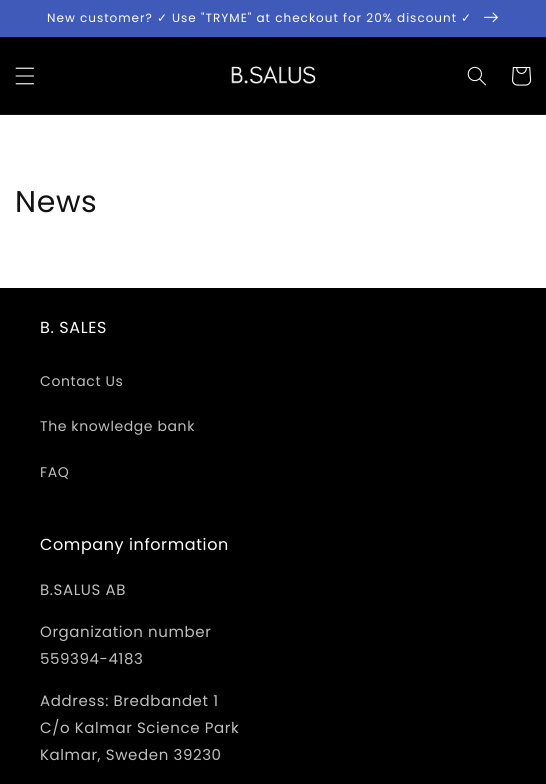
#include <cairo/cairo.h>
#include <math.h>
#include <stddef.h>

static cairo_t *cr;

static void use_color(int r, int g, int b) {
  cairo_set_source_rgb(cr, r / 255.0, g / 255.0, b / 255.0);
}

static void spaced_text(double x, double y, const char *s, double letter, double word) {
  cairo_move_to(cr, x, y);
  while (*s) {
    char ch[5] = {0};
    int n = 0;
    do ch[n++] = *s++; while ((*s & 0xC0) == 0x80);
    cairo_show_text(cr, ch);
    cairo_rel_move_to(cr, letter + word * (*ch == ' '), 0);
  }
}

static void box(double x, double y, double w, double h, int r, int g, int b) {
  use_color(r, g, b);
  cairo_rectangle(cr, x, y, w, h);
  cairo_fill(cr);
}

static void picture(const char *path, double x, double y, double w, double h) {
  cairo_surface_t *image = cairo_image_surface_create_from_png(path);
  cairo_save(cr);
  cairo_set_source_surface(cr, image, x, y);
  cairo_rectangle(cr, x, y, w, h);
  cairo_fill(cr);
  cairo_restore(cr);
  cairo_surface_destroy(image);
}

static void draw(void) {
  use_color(255, 255, 255);
  cairo_paint(cr);
  box(0, 36, 546, 1, 67, 93, 186);
  box(0, 0, 546, 36, 63, 90, 185);
  picture("img_01.png", 484, 12, 14, 11);
  box(0, 37, 546, 77, 0, 0, 0);
  box(0, 114, 546, 1, 20, 20, 20);
  picture("img_02.png", 15, 67, 20, 18);
  picture("img_03.png", 231, 65, 85, 19);
  picture("img_04.png", 467, 66, 19, 20);
  picture("img_05.png", 512, 67, 20, 19);
  box(0, 288, 546, 496, 0, 0, 0);
  cairo_select_font_face(cr, "Poppins", CAIRO_FONT_SLANT_NORMAL, CAIRO_FONT_WEIGHT_NORMAL);
  cairo_set_font_size(cr, 12);
  use_color(255, 255, 255);
  spaced_text(47, 22, "New customer?", 1, 0);
  cairo_select_font_face(cr, "DejaVu Sans", CAIRO_FONT_SLANT_NORMAL, CAIRO_FONT_WEIGHT_NORMAL);
  spaced_text(157, 22, "✓", 1, 0);
  cairo_select_font_face(cr, "Poppins", CAIRO_FONT_SLANT_NORMAL, CAIRO_FONT_WEIGHT_NORMAL);
  spaced_text(172, 22, "Use \"TRYME\" at checkout for 20% discount", 1, 0);
  cairo_select_font_face(cr, "DejaVu Sans", CAIRO_FONT_SLANT_NORMAL, CAIRO_FONT_WEIGHT_NORMAL);
  spaced_text(461, 22, "✓", 1, 0);
  cairo_select_font_face(cr, "Poppins", CAIRO_FONT_SLANT_NORMAL, CAIRO_FONT_WEIGHT_NORMAL);
  cairo_set_font_size(cr, 30);
  use_color(18, 18, 18);
  spaced_text(15, 212, "News", 0.6, 0);
  cairo_set_font_size(cr, 16);
  use_color(255, 255, 255);
  spaced_text(40, 333, "B. SALES", 0.6, 0);
  cairo_set_font_size(cr, 14);
  use_color(191, 191, 191);
  spaced_text(40, 386, "Contact Us", 0.6, 0);
  spaced_text(40, 431, "The knowledge bank", 0.6, 0);
  spaced_text(40, 477, "FAQ", 0.6, 0);
  cairo_set_font_size(cr, 16);
  use_color(255, 255, 255);
  spaced_text(40, 550, "Company information", 0.6, 0);
  cairo_set_font_size(cr, 15);
  use_color(191, 191, 191);
  spaced_text(40, 595, "B.SALUS AB", 0.6, 0);
  spaced_text(40, 637, "Organization number", 0.6, 0);
  spaced_text(40, 664, "559394-4183", 0.6, 0);
  spaced_text(40, 706, "Address: Bredbandet 1", 0.6, 0);
  spaced_text(40, 733, "C/o Kalmar Science Park", 0.6, 0);
  spaced_text(40, 760, "Kalmar, Sweden 39230", 0.6, 0);
}

int main(void) {
  cairo_surface_t *surface = cairo_image_surface_create(CAIRO_FORMAT_RGB24, 546, 784);
  cr = cairo_create(surface);
  cairo_font_options_t *options = cairo_font_options_create();
  cairo_font_options_set_hint_metrics(options, CAIRO_HINT_METRICS_OFF);
  cairo_font_options_set_hint_style(options, CAIRO_HINT_STYLE_NONE);
  cairo_set_font_options(cr, options);
  cairo_set_miter_limit(cr, 4);
  draw();
  cairo_surface_write_to_png(surface, "out.png");
  cairo_font_options_destroy(options);
  cairo_destroy(cr);
  cairo_surface_destroy(surface);
  return 0;
}
